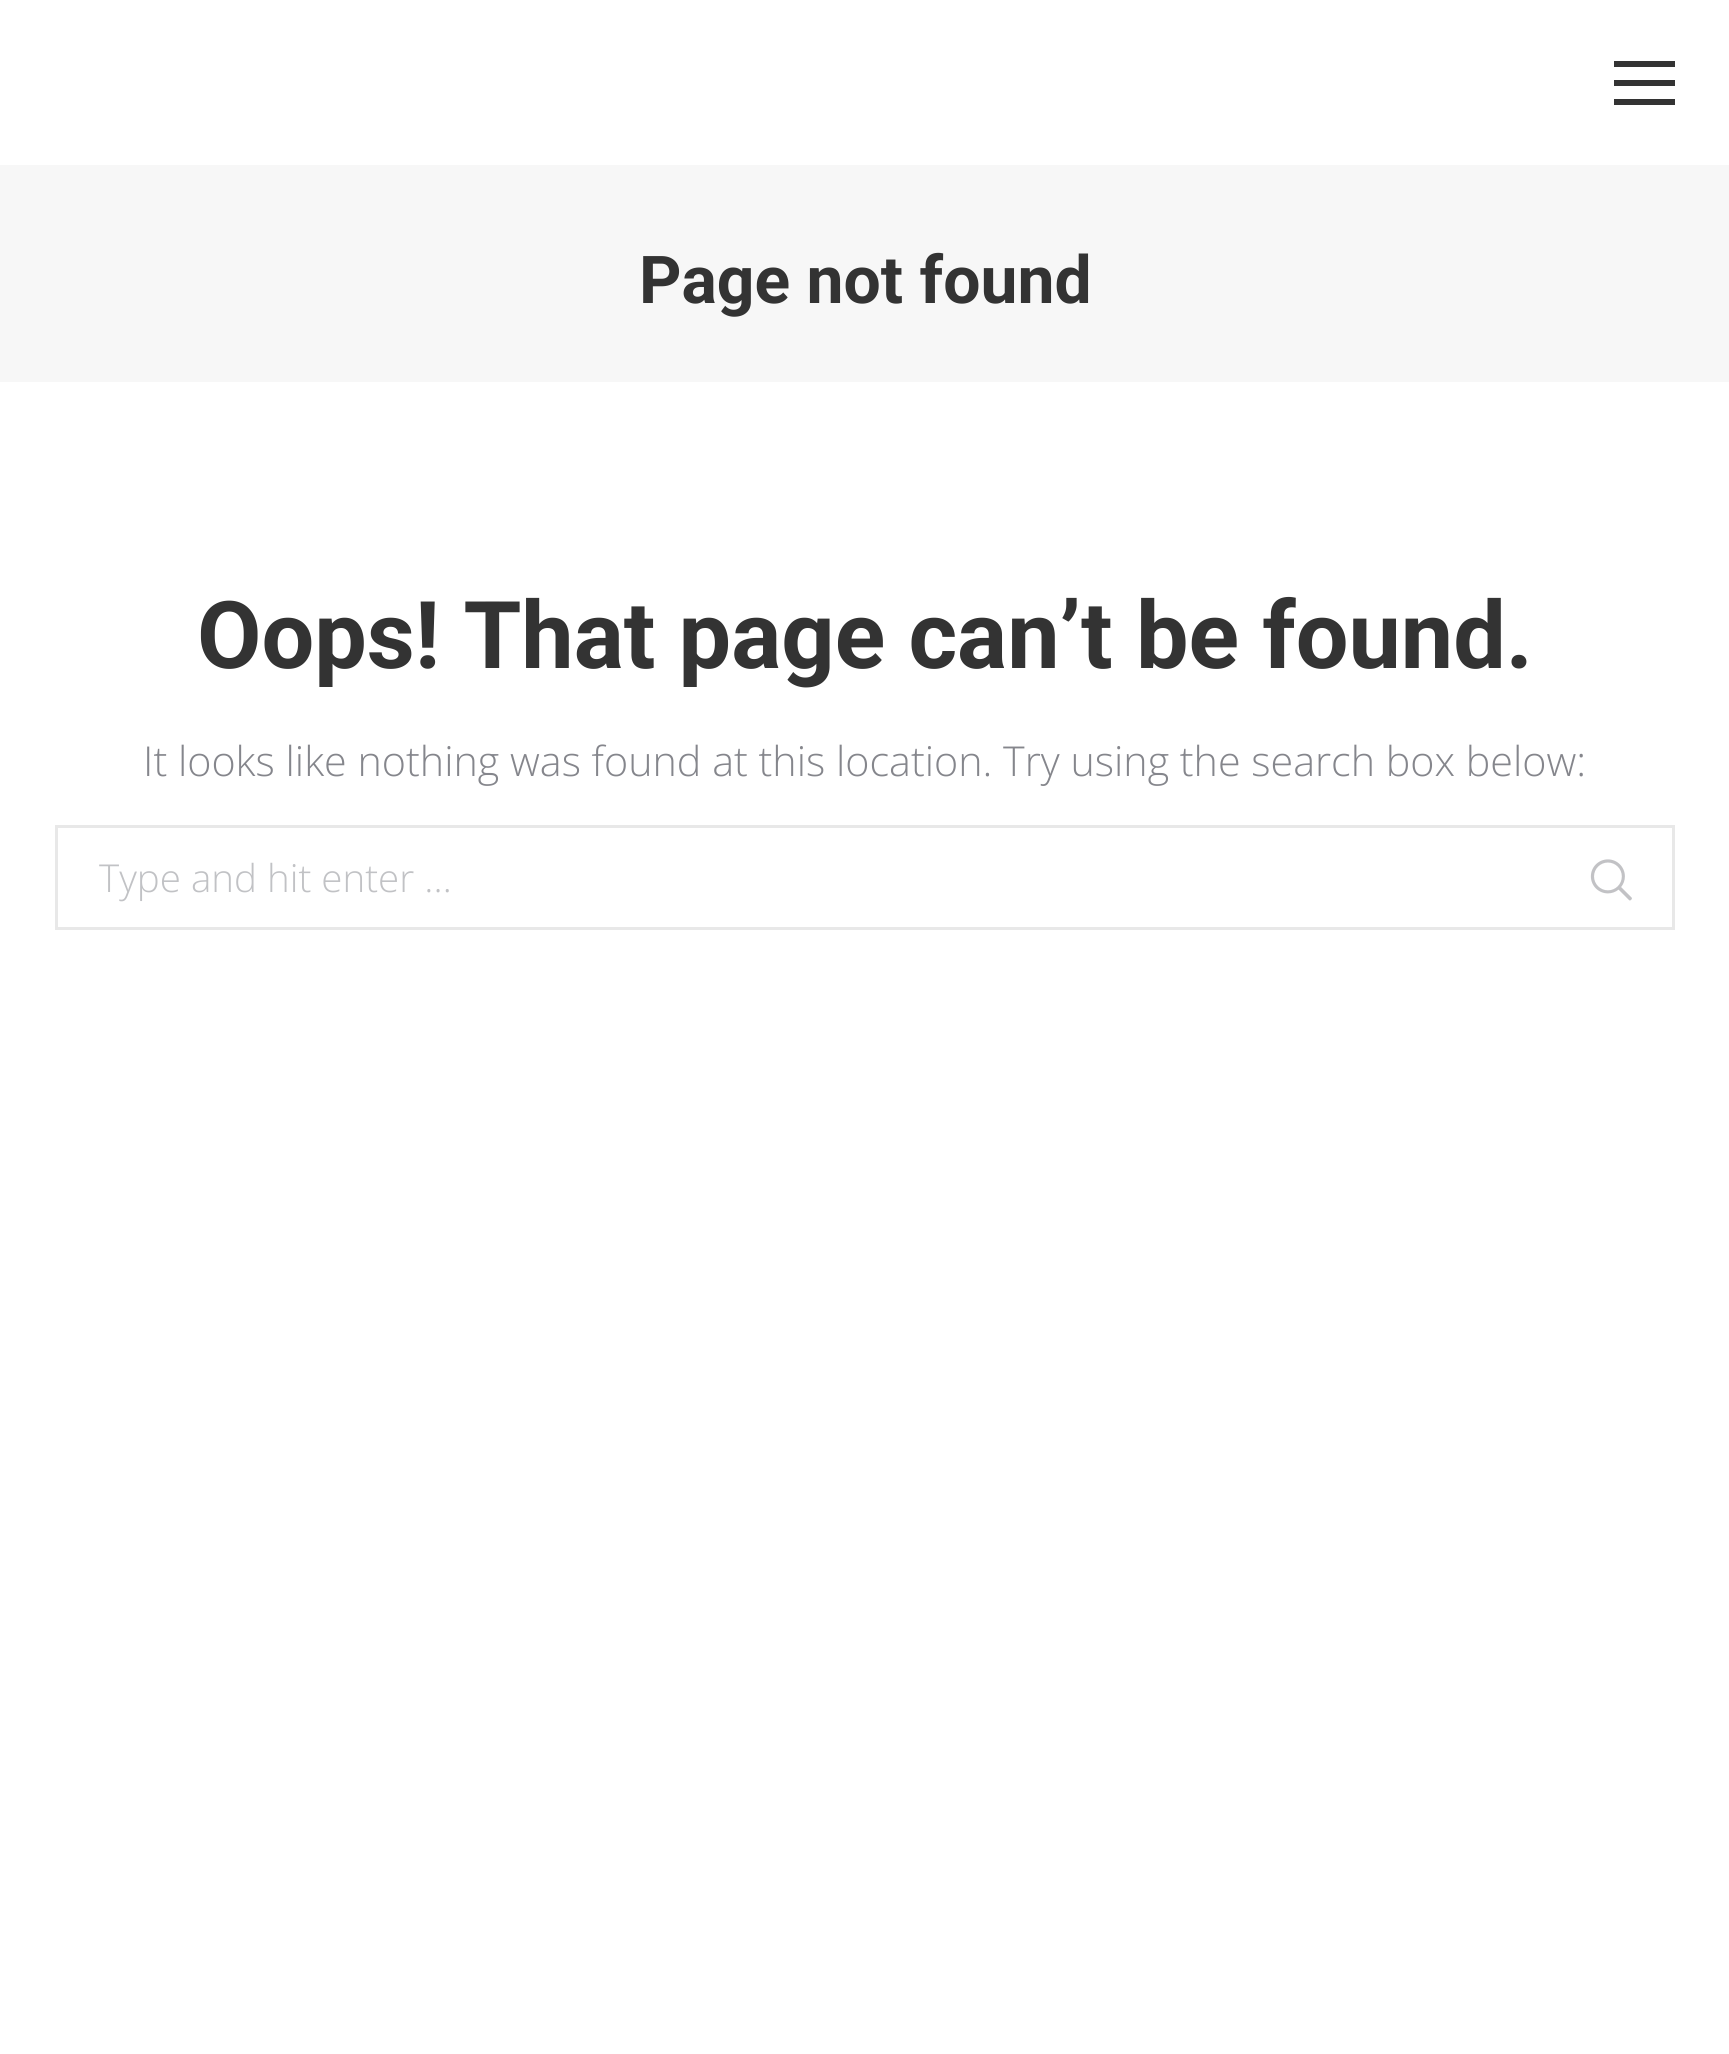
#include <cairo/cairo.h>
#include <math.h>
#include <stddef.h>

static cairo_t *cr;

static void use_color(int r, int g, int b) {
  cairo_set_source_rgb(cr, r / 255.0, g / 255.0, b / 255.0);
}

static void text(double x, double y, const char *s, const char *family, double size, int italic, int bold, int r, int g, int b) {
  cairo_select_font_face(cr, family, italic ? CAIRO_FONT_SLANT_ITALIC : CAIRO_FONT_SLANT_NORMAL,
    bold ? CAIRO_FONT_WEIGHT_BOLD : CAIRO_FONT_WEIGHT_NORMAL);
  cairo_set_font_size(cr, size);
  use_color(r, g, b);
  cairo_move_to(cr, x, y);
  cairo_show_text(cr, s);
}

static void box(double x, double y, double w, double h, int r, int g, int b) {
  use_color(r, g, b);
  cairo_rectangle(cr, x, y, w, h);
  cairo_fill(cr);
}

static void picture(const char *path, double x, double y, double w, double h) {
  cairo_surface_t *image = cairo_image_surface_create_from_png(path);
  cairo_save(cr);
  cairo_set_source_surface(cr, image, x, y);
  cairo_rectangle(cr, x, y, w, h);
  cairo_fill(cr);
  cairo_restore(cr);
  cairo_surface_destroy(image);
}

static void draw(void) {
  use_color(255, 255, 255);
  cairo_paint(cr);
  box(1614, 80, 61, 6, 51, 51, 51);
  box(1614, 61, 61, 6, 51, 51, 51);
  box(1614, 99, 61, 6, 51, 51, 51);
  box(0, 165, 1729, 217, 247, 247, 247);
  cairo_rectangle(cr, 56.5, 826.5, 1617, 102);
  use_color(232, 232, 232);
  cairo_set_line_width(cr, 3);
  cairo_stroke(cr);
  picture("img_01.png", 1590, 859, 42, 42);
  text(639, 303, "Page not found", "Roboto", 66, 0, 1, 51, 51, 51);
  text(197, 668, "Oops! That page can’t be found.", "Roboto", 93.5, 0, 1, 51, 51, 51);
  text(143, 776, "It looks like nothing was found at this location. Try using the search box below:", "Open Sans Light", 41.25, 0, 0, 133, 134, 140);
  text(99, 892, "Type and hit enter …", "Open Sans Light", 38.5, 0, 0, 193, 194, 197);
}

int main(void) {
  cairo_surface_t *surface = cairo_image_surface_create(CAIRO_FORMAT_RGB24, 1729, 2054);
  cr = cairo_create(surface);
  cairo_font_options_t *options = cairo_font_options_create();
  cairo_font_options_set_hint_metrics(options, CAIRO_HINT_METRICS_OFF);
  cairo_font_options_set_hint_style(options, CAIRO_HINT_STYLE_NONE);
  cairo_set_font_options(cr, options);
  cairo_set_miter_limit(cr, 4);
  draw();
  cairo_surface_write_to_png(surface, "out.png");
  cairo_font_options_destroy(options);
  cairo_destroy(cr);
  cairo_surface_destroy(surface);
  return 0;
}
